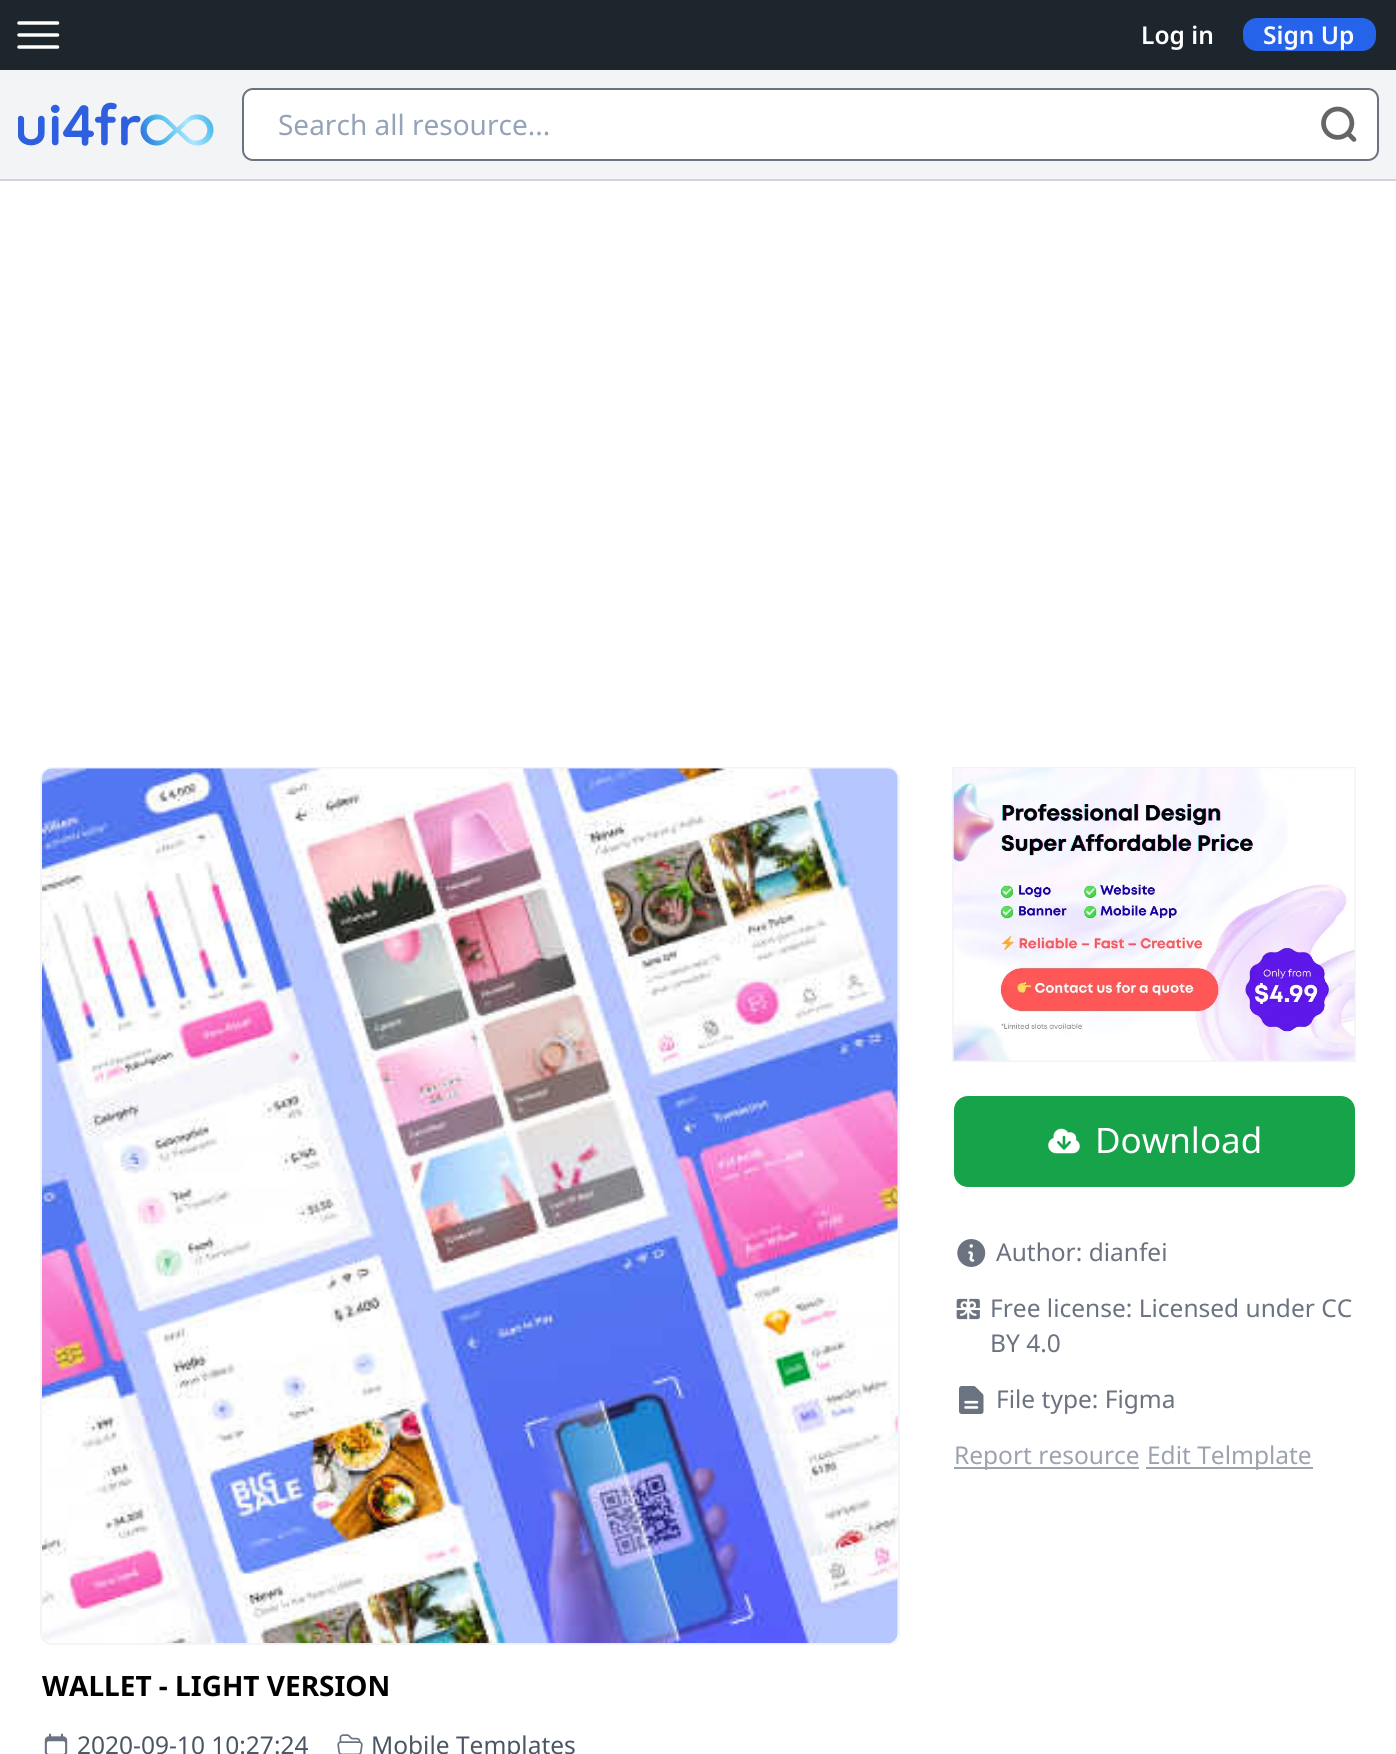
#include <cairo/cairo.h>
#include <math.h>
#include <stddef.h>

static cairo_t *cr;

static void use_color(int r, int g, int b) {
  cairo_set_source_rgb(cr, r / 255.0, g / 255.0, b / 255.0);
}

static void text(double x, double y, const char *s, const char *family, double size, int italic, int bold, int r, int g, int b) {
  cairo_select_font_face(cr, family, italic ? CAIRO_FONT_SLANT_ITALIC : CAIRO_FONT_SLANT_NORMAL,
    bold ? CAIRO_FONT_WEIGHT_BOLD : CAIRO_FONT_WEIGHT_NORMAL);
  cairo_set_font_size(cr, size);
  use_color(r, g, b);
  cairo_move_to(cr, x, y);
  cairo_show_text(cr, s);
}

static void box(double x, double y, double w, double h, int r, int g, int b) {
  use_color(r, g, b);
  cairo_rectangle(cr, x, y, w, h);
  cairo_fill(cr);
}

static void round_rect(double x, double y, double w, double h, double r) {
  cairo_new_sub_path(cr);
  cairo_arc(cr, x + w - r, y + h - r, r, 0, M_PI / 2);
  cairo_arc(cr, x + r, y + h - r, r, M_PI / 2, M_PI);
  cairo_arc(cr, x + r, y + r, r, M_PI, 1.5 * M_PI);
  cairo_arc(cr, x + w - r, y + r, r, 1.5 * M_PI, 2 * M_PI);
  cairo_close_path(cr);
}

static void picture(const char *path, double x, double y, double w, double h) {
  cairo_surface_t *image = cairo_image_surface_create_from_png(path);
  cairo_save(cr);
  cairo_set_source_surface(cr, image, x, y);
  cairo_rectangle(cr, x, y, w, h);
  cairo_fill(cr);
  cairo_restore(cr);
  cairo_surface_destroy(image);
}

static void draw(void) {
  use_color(255, 255, 255);
  cairo_paint(cr);
  box(0, 0, 1396, 70, 29, 38, 45);
  cairo_new_path(cr);
  cairo_move_to(cr, 19, 23);
  cairo_line_to(cr, 57.5, 23);
  cairo_move_to(cr, 19, 35);
  cairo_line_to(cr, 57.5, 35);
  cairo_move_to(cr, 19, 47);
  cairo_line_to(cr, 57.5, 47);
  use_color(255, 255, 255);
  cairo_set_line_width(cr, 3.5);
  cairo_set_line_cap(cr, CAIRO_LINE_CAP_ROUND);
  cairo_set_line_join(cr, CAIRO_LINE_JOIN_ROUND);
  cairo_stroke(cr);
  use_color(37, 99, 235);
  round_rect(1243, 18, 133, 33, 14);
  cairo_fill(cr);
  box(0, 70, 1396, 109, 243, 244, 246);
  box(0, 179, 1396, 2, 209, 213, 219);
  picture("img_01.png", 18, 102, 196, 44);
  use_color(255, 255, 255);
  round_rect(243, 89, 1135, 71, 10);
  cairo_fill_preserve(cr);
  use_color(107, 114, 128);
  cairo_set_line_width(cr, 2);
  cairo_set_line_cap(cr, CAIRO_LINE_CAP_BUTT);
  cairo_set_line_join(cr, CAIRO_LINE_JOIN_MITER);
  cairo_stroke(cr);
  picture("img_02.png", 1321, 106, 36, 36);
  cairo_rectangle(cr, 953, 768, 402, 293);
  use_color(243, 244, 246);
  cairo_stroke(cr);
  box(954, 769, 400, 291, 243, 244, 246);
  picture("img_03.png", 953, 768, 402, 293);
  use_color(22, 163, 74);
  round_rect(954, 1096, 401, 91, 14);
  cairo_fill(cr);
  picture("img_04.png", 1048, 1128, 32, 26);
  picture("img_05.png", 957, 1239, 29, 28);
  picture("img_06.png", 956, 1298, 24, 22);
  picture("img_07.png", 959, 1386, 25, 28);
  box(954, 1467, 185, 2, 156, 163, 175);
  box(1146, 1467, 167, 2, 156, 163, 175);
  round_rect(41, 768, 858, 876, 11);
  use_color(243, 244, 246);
  cairo_stroke(cr);
  picture("img_08.png", 42, 768, 856, 876);
  picture("img_09.png", 44, 1733, 24, 21);
  picture("img_10.png", 337, 1734, 26, 20);
  text(1141, 44, "Log in", "Noto Sans SemiBold", 24.5, 0, 0, 255, 255, 255);
  text(1263, 44, "Sign Up", "Noto Sans SemiBold", 24.5, 0, 0, 249, 250, 251);
  text(278, 135, "Search all resource...", "Noto Sans", 28, 0, 0, 148, 163, 184);
  text(1095, 1153, "Download", "Noto Sans", 35, 0, 0, 255, 255, 255);
  text(996, 1261, "Author: dianfei", "Noto Sans", 24.5, 0, 0, 107, 114, 128);
  text(990, 1317, "Free license: Licensed under CC", "Noto Sans", 24.5, 0, 0, 107, 114, 128);
  text(990, 1352, "BY 4.0", "Noto Sans", 24.5, 0, 0, 107, 114, 128);
  text(996, 1408, "File type: Figma", "Noto Sans", 24.5, 0, 0, 107, 114, 128);
  text(954, 1464, "Report resource", "Noto Sans", 24.5, 0, 0, 156, 163, 175);
  text(1147, 1464, "Edit Telmplate", "Noto Sans", 24.5, 0, 0, 156, 163, 175);
  text(42, 1696, "WALLET - LIGHT VERSION", "Noto Sans", 28, 0, 1, 0, 0, 0);
  text(77, 1754, "2020-09-10 10:27:24", "Noto Sans", 24.5, 0, 0, 75, 85, 99);
  text(371, 1754, "Mobile Templates", "Noto Sans", 24.5, 0, 0, 75, 85, 99);
}

int main(void) {
  cairo_surface_t *surface = cairo_image_surface_create(CAIRO_FORMAT_RGB24, 1396, 1754);
  cr = cairo_create(surface);
  cairo_font_options_t *options = cairo_font_options_create();
  cairo_font_options_set_hint_metrics(options, CAIRO_HINT_METRICS_OFF);
  cairo_font_options_set_hint_style(options, CAIRO_HINT_STYLE_NONE);
  cairo_set_font_options(cr, options);
  cairo_set_miter_limit(cr, 4);
  draw();
  cairo_surface_write_to_png(surface, "out.png");
  cairo_font_options_destroy(options);
  cairo_destroy(cr);
  cairo_surface_destroy(surface);
  return 0;
}
